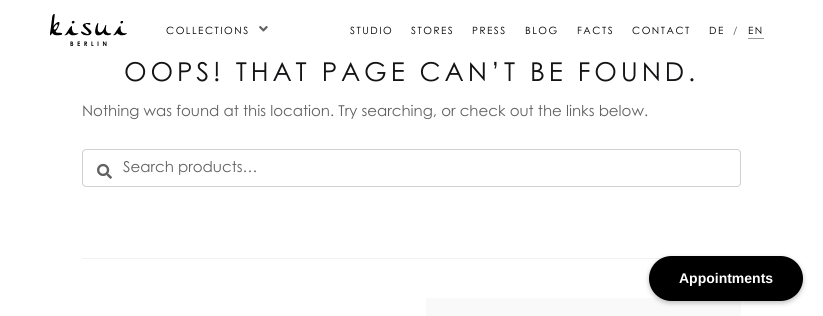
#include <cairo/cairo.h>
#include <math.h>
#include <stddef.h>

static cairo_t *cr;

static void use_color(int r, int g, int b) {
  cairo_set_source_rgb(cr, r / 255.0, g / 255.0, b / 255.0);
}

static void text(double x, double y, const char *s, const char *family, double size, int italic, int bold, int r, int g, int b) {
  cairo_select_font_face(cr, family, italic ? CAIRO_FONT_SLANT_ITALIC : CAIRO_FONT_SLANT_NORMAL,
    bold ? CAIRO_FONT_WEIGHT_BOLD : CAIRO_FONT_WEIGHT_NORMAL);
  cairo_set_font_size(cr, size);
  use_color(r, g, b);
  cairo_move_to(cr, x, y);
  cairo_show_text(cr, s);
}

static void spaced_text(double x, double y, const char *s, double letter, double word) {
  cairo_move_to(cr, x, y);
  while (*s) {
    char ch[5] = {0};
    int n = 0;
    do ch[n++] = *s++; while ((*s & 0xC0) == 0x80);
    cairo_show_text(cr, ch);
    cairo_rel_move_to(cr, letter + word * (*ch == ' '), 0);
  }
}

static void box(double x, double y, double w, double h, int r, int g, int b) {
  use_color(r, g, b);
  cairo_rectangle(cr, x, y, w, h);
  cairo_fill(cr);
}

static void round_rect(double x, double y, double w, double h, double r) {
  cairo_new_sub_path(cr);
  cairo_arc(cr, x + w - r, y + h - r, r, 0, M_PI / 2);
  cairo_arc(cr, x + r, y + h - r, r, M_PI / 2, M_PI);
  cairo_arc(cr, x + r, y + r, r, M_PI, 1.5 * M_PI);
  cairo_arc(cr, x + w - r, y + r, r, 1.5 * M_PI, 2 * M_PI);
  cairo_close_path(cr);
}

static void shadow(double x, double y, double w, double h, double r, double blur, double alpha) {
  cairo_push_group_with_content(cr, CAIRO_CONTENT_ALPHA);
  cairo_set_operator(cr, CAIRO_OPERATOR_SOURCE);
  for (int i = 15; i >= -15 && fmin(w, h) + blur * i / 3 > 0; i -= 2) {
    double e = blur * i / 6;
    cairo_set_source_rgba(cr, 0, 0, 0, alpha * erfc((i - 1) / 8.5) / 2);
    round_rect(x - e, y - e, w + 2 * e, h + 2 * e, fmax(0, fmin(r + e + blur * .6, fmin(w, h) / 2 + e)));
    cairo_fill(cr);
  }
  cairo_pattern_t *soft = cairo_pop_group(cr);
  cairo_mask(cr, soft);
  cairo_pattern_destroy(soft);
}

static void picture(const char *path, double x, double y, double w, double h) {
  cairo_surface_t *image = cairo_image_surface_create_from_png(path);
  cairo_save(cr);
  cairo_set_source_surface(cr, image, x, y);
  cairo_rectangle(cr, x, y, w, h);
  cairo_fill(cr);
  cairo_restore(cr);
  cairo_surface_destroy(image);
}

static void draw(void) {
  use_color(255, 255, 255);
  cairo_paint(cr);
  picture("img_01.png", 50, 14, 77, 32);
  picture("img_02.png", 259, 26, 9, 6);
  box(748, 38, 16, 1, 153, 153, 153);
  round_rect(82.5, 149.5, 658, 37, 3.5);
  use_color(209, 209, 209);
  cairo_set_line_width(cr, 1);
  cairo_stroke(cr);
  picture("img_03.png", 97, 163, 15, 16);
  box(82, 258, 581, 1, 242, 242, 242);
  box(426, 298, 315, 18, 249, 249, 249);
  use_color(0, 0, 0);
  shadow(649, 258, 154, 45, 22.5, 2.5, 0.25);
  use_color(0, 0, 0);
  round_rect(649, 256, 154, 45, 22.5);
  cairo_fill(cr);
  cairo_select_font_face(cr, "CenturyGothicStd", CAIRO_FONT_SLANT_NORMAL, CAIRO_FONT_WEIGHT_NORMAL);
  cairo_set_font_size(cr, 10);
  spaced_text(166, 34, "COLLECTIONS", 1.5, 0);
  spaced_text(350, 34, "STUDIO", 1.5, 0);
  spaced_text(411, 34, "STORES", 1.5, 0);
  spaced_text(472, 34, "PRESS", 1.5, 0);
  spaced_text(525, 34, "BLOG", 1.5, 0);
  spaced_text(577, 34, "FACTS", 1.5, 0);
  spaced_text(632, 34, "CONTACT", 1.5, 0);
  spaced_text(709, 34, "DE", 1.5, 0);
  use_color(98, 98, 98);
  spaced_text(733, 34, "/", 1.5, 0);
  use_color(0, 0, 0);
  spaced_text(748, 34, "EN", 1.5, 0);
  cairo_set_font_size(cr, 26);
  use_color(19, 19, 21);
  spaced_text(124, 81, "OOPS! THAT PAGE CAN’T BE FOUND.", 3.9, 0);
  text(82, 116, "Nothing was found at this location. Try searching, or check out the links below.", "CenturyGothicStd", 15, 0, 0, 98, 98, 98);
  text(123, 172, "Search products…", "CenturyGothicStd", 15, 0, 0, 98, 98, 98);
  text(679, 283, "Appointments", "Liberation Sans", 14, 0, 1, 255, 255, 255);
}

int main(void) {
  cairo_surface_t *surface = cairo_image_surface_create(CAIRO_FORMAT_RGB24, 823, 316);
  cr = cairo_create(surface);
  cairo_font_options_t *options = cairo_font_options_create();
  cairo_font_options_set_hint_metrics(options, CAIRO_HINT_METRICS_OFF);
  cairo_font_options_set_hint_style(options, CAIRO_HINT_STYLE_NONE);
  cairo_set_font_options(cr, options);
  cairo_set_miter_limit(cr, 4);
  draw();
  cairo_surface_write_to_png(surface, "out.png");
  cairo_font_options_destroy(options);
  cairo_destroy(cr);
  cairo_surface_destroy(surface);
  return 0;
}
